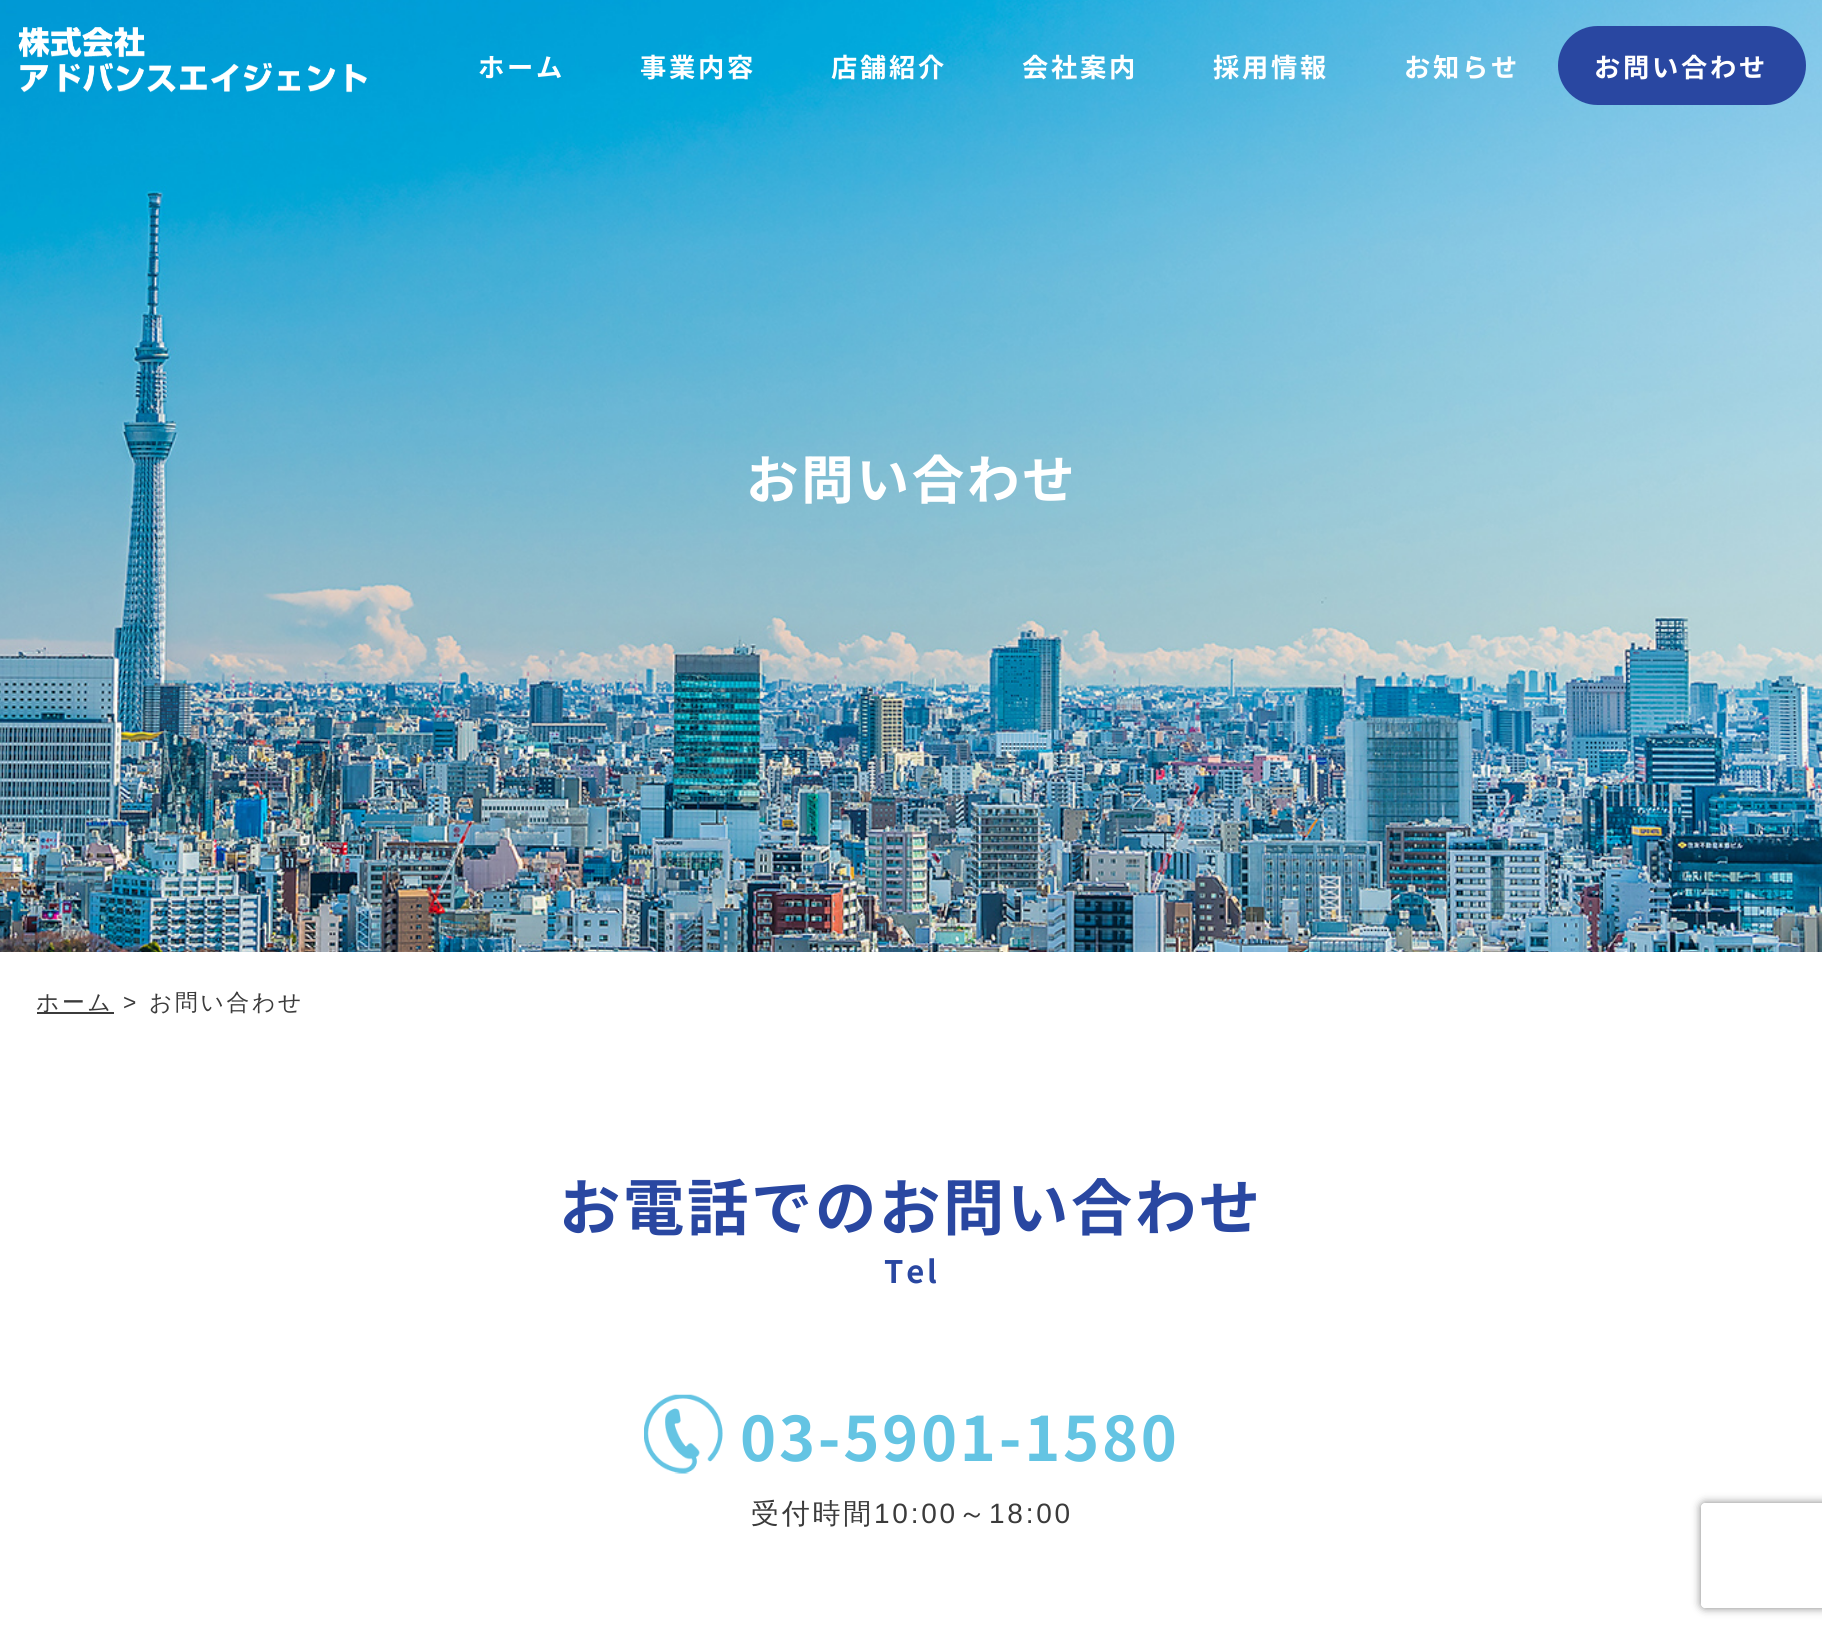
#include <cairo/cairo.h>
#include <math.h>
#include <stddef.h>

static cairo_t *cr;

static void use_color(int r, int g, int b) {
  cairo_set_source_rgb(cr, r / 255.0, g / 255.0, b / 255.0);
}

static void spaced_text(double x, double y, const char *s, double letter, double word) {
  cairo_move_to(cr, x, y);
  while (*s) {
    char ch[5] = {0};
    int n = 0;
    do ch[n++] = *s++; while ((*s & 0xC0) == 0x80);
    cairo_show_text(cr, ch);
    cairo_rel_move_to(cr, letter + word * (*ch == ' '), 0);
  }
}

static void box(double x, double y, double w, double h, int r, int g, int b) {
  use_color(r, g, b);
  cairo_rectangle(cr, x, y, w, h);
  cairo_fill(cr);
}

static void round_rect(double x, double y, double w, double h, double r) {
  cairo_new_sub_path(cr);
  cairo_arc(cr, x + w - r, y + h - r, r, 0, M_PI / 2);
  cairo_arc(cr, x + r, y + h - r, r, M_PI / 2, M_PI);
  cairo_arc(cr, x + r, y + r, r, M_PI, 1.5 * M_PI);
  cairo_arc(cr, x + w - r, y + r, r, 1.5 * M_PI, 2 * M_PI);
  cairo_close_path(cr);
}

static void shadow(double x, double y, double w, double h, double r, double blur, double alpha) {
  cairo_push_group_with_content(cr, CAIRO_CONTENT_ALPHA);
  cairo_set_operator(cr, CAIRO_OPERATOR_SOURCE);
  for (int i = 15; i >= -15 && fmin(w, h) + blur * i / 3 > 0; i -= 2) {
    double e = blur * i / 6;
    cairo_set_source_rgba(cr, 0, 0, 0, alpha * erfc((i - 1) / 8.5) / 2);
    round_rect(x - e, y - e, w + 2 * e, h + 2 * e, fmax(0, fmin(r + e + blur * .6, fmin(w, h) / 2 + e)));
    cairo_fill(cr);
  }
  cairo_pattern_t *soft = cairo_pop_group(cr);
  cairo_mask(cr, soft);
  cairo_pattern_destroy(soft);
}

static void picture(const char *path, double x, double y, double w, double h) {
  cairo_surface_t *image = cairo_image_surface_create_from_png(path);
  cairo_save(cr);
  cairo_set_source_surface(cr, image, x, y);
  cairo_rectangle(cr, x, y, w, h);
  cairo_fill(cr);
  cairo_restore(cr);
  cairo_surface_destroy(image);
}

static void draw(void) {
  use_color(255, 255, 255);
  cairo_paint(cr);
  picture("img_02.png", 0, 0, 1822, 952);
  picture("img_01.png", 18, 27, 349, 66);
  use_color(41, 71, 161);
  round_rect(1558, 26, 248, 79, 39.5);
  cairo_fill(cr);
  box(37, 1012, 77, 2, 59, 59, 59);
  picture("img_03.png", 644, 1394, 79, 80);
  cairo_save(cr);
  cairo_set_fill_rule(cr, CAIRO_FILL_RULE_EVEN_ODD);
  cairo_new_path(cr);
  cairo_move_to(cr, 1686, 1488);
  cairo_line_to(cr, 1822, 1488);
  cairo_line_to(cr, 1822, 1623);
  cairo_line_to(cr, 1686, 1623);
  cairo_close_path(cr);
  cairo_move_to(cr, 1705, 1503);
  cairo_line_to(cr, 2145, 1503);
  cairo_curve_to(cr, 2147, 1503, 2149, 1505, 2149, 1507);
  cairo_line_to(cr, 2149, 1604);
  cairo_curve_to(cr, 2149, 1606, 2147, 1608, 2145, 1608);
  cairo_line_to(cr, 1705, 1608);
  cairo_curve_to(cr, 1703, 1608, 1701, 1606, 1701, 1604);
  cairo_line_to(cr, 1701, 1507);
  cairo_curve_to(cr, 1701, 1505, 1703, 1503, 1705, 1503);
  cairo_close_path(cr);
  cairo_clip(cr);
  use_color(128, 128, 128);
  shadow(1701, 1503, 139, 105, 4, 4.5, 1);
  cairo_restore(cr);
  cairo_select_font_face(cr, "Noto Sans JP", CAIRO_FONT_SLANT_NORMAL, CAIRO_FONT_WEIGHT_BOLD);
  cairo_set_font_size(cr, 26.25);
  use_color(255, 255, 255);
  spaced_text(478, 77, "ホーム", 2.75, 0);
  spaced_text(640, 77, "事業内容", 2.75, 0);
  spaced_text(831, 77, "店舗紹介", 2.75, 0);
  spaced_text(1022, 77, "会社案内", 2.75, 0);
  spaced_text(1213, 77, "採用情報", 2.75, 0);
  spaced_text(1404, 77, "お知らせ", 2.75, 0);
  spaced_text(1594, 77, "お問い合わせ", 2.75, 0);
  cairo_set_font_size(cr, 52.5);
  spaced_text(746, 499, "お問い合わせ", 2.75, 0);
  cairo_select_font_face(cr, "WenQuanYi Zen Hei Medium", CAIRO_FONT_SLANT_NORMAL, CAIRO_FONT_WEIGHT_NORMAL);
  cairo_set_font_size(cr, 22.75);
  use_color(59, 59, 59);
  spaced_text(36, 1010, "ホーム", 2.75, 0);
  cairo_select_font_face(cr, "Liberation Sans", CAIRO_FONT_SLANT_NORMAL, CAIRO_FONT_WEIGHT_NORMAL);
  spaced_text(123, 1010, ">", 2.75, 0);
  cairo_select_font_face(cr, "WenQuanYi Zen Hei Medium", CAIRO_FONT_SLANT_NORMAL, CAIRO_FONT_WEIGHT_NORMAL);
  spaced_text(149, 1010, "お問い合わせ", 2.75, 0);
  cairo_select_font_face(cr, "Noto Sans JP", CAIRO_FONT_SLANT_NORMAL, CAIRO_FONT_WEIGHT_BOLD);
  cairo_set_font_size(cr, 61.25);
  use_color(41, 71, 161);
  spaced_text(559, 1230, "お電話でのお問い合わせ", 2.75, 0);
  cairo_set_font_size(cr, 31);
  spaced_text(884, 1283, "Tel", 2.75, 0);
  cairo_set_font_size(cr, 61.25);
  use_color(100, 196, 227);
  spaced_text(740, 1461, "03-5901-1580", 2.75, 0);
  cairo_select_font_face(cr, "WenQuanYi Zen Hei Medium", CAIRO_FONT_SLANT_NORMAL, CAIRO_FONT_WEIGHT_NORMAL);
  cairo_set_font_size(cr, 28);
  use_color(59, 59, 59);
  spaced_text(751, 1523, "受付時間", 2.75, 0);
  cairo_select_font_face(cr, "Liberation Sans", CAIRO_FONT_SLANT_NORMAL, CAIRO_FONT_WEIGHT_NORMAL);
  spaced_text(874, 1523, "10:00", 2.75, 0);
  cairo_select_font_face(cr, "WenQuanYi Zen Hei Medium", CAIRO_FONT_SLANT_NORMAL, CAIRO_FONT_WEIGHT_NORMAL);
  spaced_text(958, 1523, "～", 2.75, 0);
  cairo_select_font_face(cr, "Liberation Sans", CAIRO_FONT_SLANT_NORMAL, CAIRO_FONT_WEIGHT_NORMAL);
  spaced_text(989, 1523, "18:00", 2.75, 0);
}

int main(void) {
  cairo_surface_t *surface = cairo_image_surface_create(CAIRO_FORMAT_RGB24, 1822, 1632);
  cr = cairo_create(surface);
  cairo_font_options_t *options = cairo_font_options_create();
  cairo_font_options_set_hint_metrics(options, CAIRO_HINT_METRICS_OFF);
  cairo_font_options_set_hint_style(options, CAIRO_HINT_STYLE_NONE);
  cairo_set_font_options(cr, options);
  cairo_set_miter_limit(cr, 4);
  draw();
  cairo_surface_write_to_png(surface, "out.png");
  cairo_font_options_destroy(options);
  cairo_destroy(cr);
  cairo_surface_destroy(surface);
  return 0;
}
